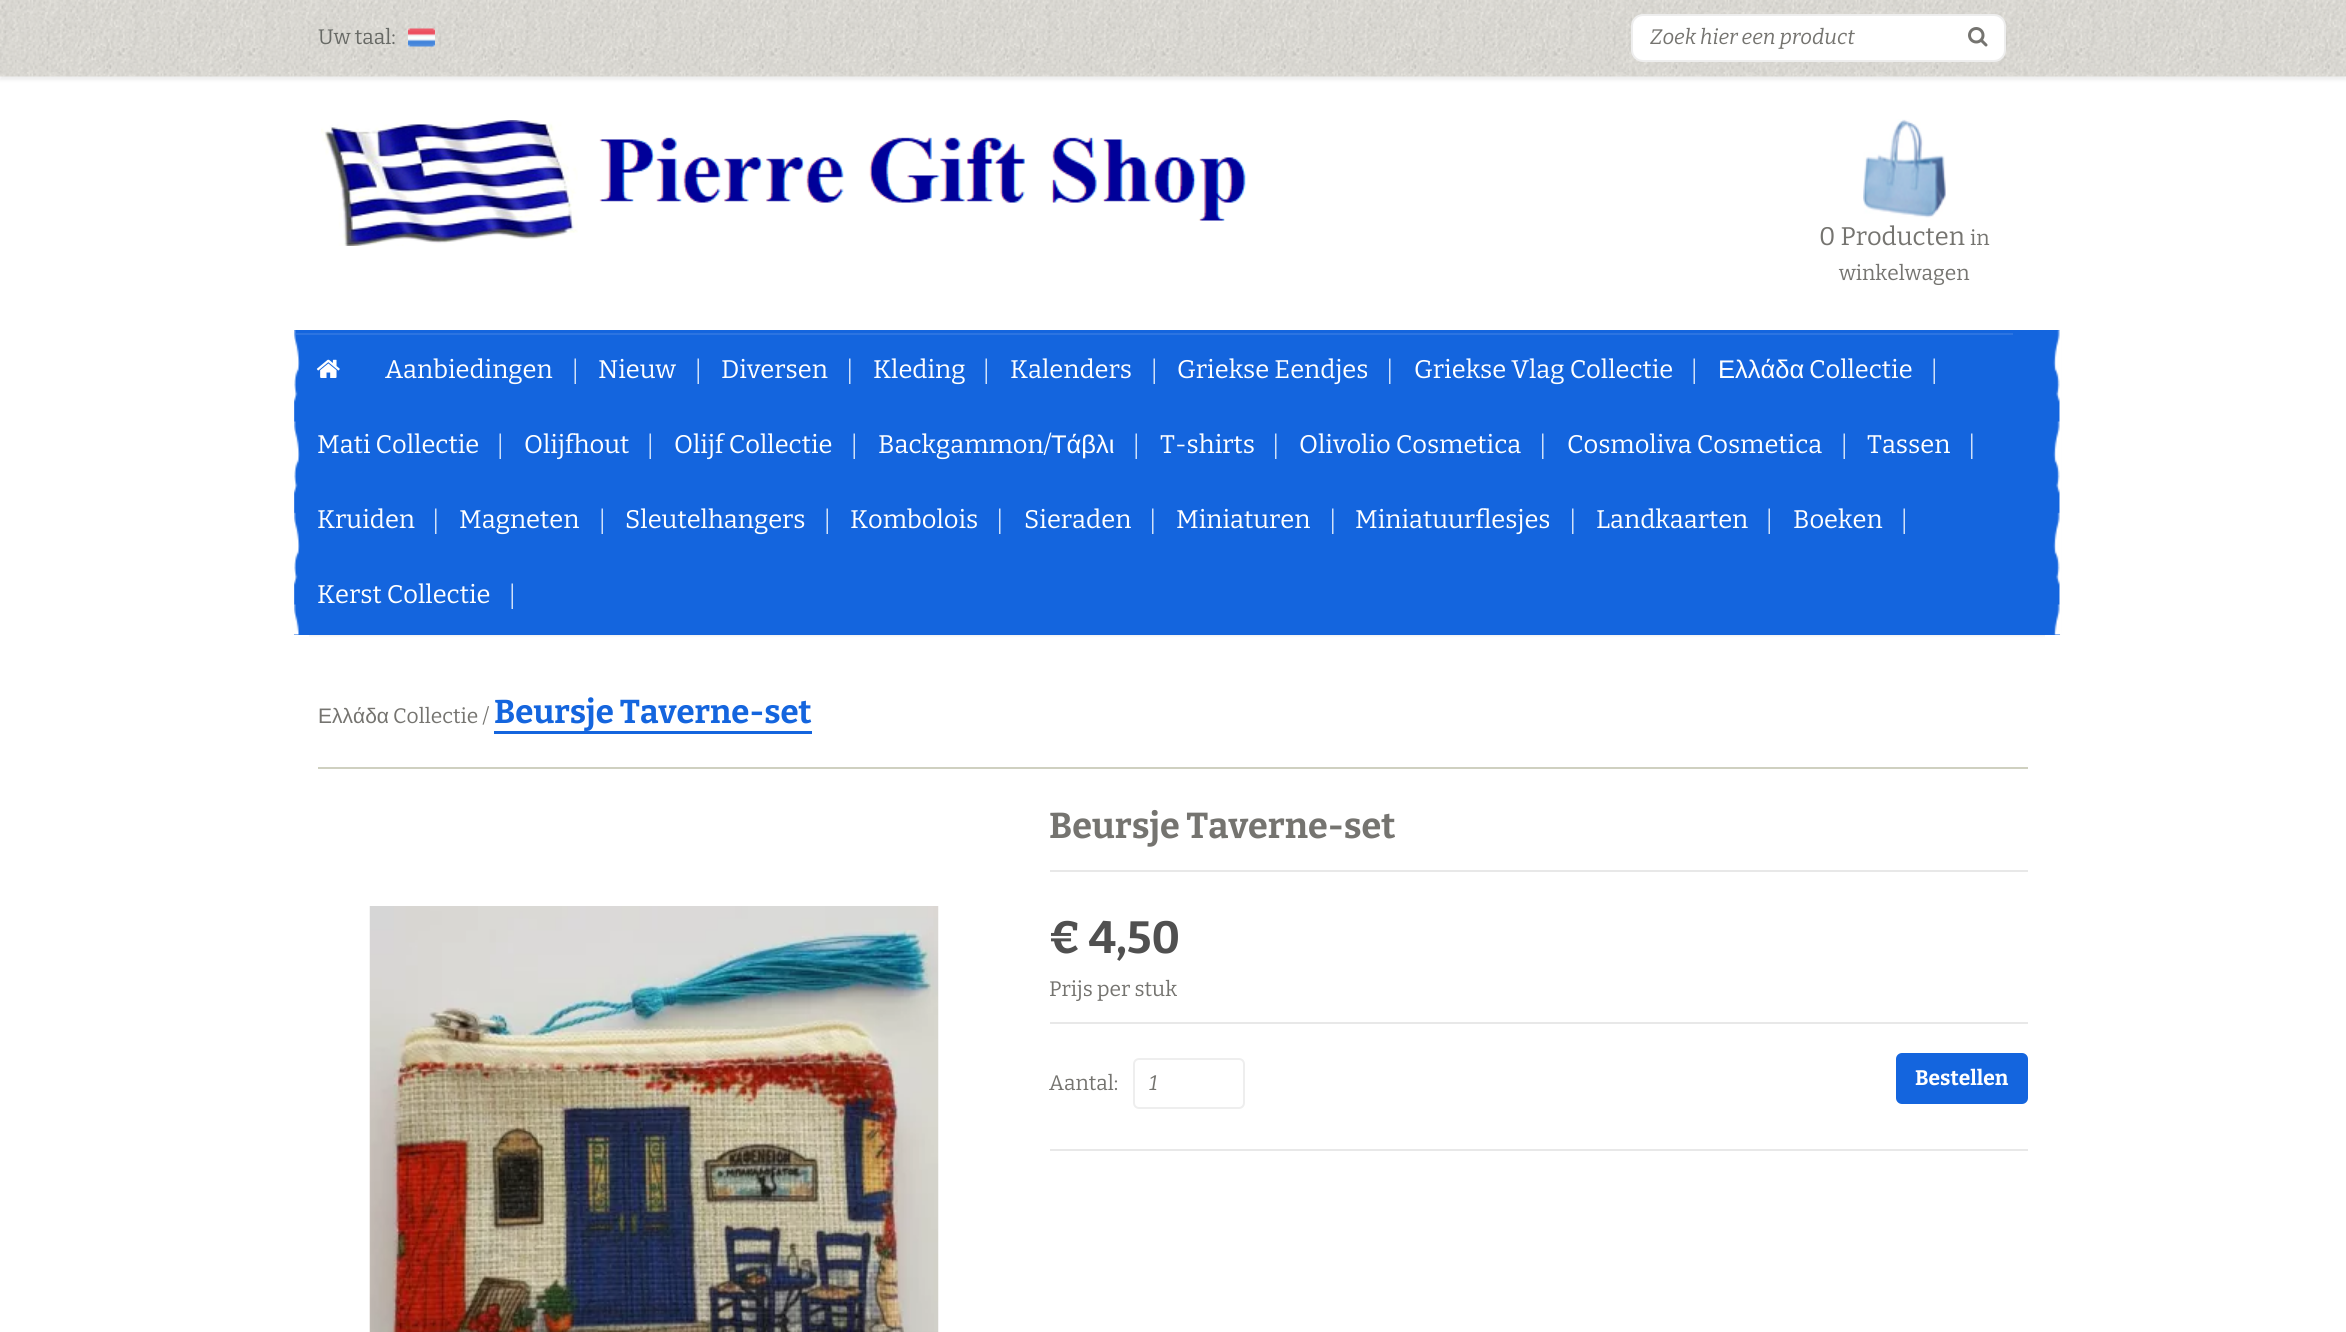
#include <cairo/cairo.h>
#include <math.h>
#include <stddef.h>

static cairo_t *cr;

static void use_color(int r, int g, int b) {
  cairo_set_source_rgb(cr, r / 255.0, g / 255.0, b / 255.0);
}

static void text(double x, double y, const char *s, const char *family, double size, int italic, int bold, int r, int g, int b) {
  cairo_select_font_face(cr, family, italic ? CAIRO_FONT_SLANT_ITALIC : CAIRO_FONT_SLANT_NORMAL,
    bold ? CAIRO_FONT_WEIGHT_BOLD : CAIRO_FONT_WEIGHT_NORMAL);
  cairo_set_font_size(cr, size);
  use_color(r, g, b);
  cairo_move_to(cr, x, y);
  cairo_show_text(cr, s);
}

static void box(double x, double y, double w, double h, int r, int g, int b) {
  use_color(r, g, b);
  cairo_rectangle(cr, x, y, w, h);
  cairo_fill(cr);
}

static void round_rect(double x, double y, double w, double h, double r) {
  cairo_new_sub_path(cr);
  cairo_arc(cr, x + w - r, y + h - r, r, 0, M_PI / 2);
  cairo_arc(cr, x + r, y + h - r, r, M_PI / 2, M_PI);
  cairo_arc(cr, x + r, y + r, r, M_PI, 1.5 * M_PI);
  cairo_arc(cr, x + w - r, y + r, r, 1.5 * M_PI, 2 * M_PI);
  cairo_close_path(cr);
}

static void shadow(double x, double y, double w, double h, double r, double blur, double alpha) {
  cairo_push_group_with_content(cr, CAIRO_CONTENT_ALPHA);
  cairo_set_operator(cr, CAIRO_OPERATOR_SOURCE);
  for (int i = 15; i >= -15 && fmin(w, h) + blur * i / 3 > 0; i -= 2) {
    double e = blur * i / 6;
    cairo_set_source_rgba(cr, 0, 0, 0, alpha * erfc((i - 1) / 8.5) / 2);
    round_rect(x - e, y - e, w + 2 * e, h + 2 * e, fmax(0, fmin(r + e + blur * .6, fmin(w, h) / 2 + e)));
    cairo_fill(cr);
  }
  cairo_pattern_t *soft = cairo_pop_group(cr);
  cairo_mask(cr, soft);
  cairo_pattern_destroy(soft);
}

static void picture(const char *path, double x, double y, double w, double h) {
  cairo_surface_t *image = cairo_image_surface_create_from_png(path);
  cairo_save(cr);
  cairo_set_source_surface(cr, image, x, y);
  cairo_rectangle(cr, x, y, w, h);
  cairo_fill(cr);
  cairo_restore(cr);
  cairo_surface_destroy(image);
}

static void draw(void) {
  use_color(255, 255, 255);
  cairo_paint(cr);
  use_color(238, 238, 238);
  shadow(0, 3, 2346, 77, 0, 1.5, 1);
  picture("img_01.png", 0, 0, 2346, 77);
  picture("img_02.png", 408, 28, 27, 19);
  use_color(255, 255, 255);
  round_rect(1632, 15, 373, 46, 11);
  cairo_fill_preserve(cr);
  use_color(238, 238, 238);
  cairo_stroke(cr);
  picture("img_03.png", 1968, 27, 20, 20);
  picture("img_04.png", 321, 120, 925, 126);
  picture("img_05.png", 1863, 119, 83, 99);
  use_color(238, 238, 238);
  shadow(294, 332, 1766, 304, 0, 1, 1);
  box(293, 635, 16, 2, 255, 255, 255);
  box(294, 330, 1766, 305, 20, 101, 222);
  box(296, 333, 1717, 2, 44, 116, 225);
  picture("img_06.png", 293, 330, 7, 305);
  picture("img_07.png", 316, 359, 24, 19);
  picture("img_08.png", 574, 358, 2, 26);
  picture("img_08.png", 697, 358, 2, 26);
  picture("img_09.png", 849, 358, 2, 26);
  picture("img_08.png", 985, 358, 2, 26);
  picture("img_08.png", 1153, 358, 2, 26);
  picture("img_09.png", 1389, 358, 2, 26);
  picture("img_08.png", 1693, 358, 2, 26);
  picture("img_08.png", 1933, 358, 2, 26);
  picture("img_08.png", 499, 433, 2, 26);
  picture("img_08.png", 649, 433, 2, 26);
  picture("img_08.png", 853, 433, 2, 26);
  picture("img_08.png", 1135, 433, 2, 26);
  picture("img_09.png", 1275, 433, 2, 26);
  picture("img_09.png", 1542, 433, 2, 26);
  picture("img_08.png", 1843, 433, 2, 26);
  picture("img_09.png", 1971, 433, 2, 26);
  picture("img_09.png", 435, 508, 2, 26);
  picture("img_08.png", 601, 508, 2, 26);
  picture("img_08.png", 826, 508, 2, 26);
  picture("img_09.png", 999, 508, 2, 26);
  picture("img_09.png", 1152, 508, 2, 26);
  picture("img_09.png", 1332, 508, 2, 26);
  picture("img_09.png", 1572, 508, 2, 26);
  picture("img_08.png", 1768, 508, 2, 26);
  picture("img_08.png", 1903, 508, 2, 26);
  picture("img_08.png", 511, 583, 2, 26);
  use_color(255, 255, 255);
  cairo_new_path(cr);
  cairo_move_to(cr, 2045, 635);
  cairo_line_to(cr, 2090, 635);
  cairo_line_to(cr, 2090, 333);
  cairo_line_to(cr, 2090, 638);
  cairo_line_to(cr, 2045, 638);
  cairo_close_path(cr);
  cairo_fill(cr);
  picture("img_10.png", 2053, 330, 8, 305);
  box(494, 731, 318, 3, 20, 101, 222);
  box(318, 767, 1710, 2, 207, 208, 192);
  picture("img_11.png", 369, 906, 570, 426);
  box(1050, 870, 978, 2, 232, 232, 232);
  box(1050, 1022, 978, 2, 232, 232, 232);
  round_rect(1134, 1059, 110, 49, 5);
  use_color(238, 238, 238);
  cairo_stroke(cr);
  use_color(20, 101, 222);
  round_rect(1897, 1054, 130, 49, 5);
  cairo_fill_preserve(cr);
  cairo_stroke(cr);
  box(1050, 1149, 978, 2, 232, 232, 232);
  text(318, 44, "Uw taal:", "Bitter", 21, 0, 0, 104, 106, 102);
  text(1650, 44, "Zoek hier een product", "Bitter", 21, 1, 0, 117, 116, 112);
  text(1819, 245, "0 Producten", "Bitter", 25.5, 0, 0, 117, 116, 112);
  text(1970, 245, "in", "Bitter", 21, 0, 0, 117, 116, 112);
  text(1839, 280, "winkelwagen", "Bitter", 21, 0, 0, 117, 116, 112);
  text(385, 378, "Aanbiedingen", "Bitter", 25.5, 0, 0, 255, 255, 255);
  text(598, 378, "Nieuw", "Bitter", 25.5, 0, 0, 255, 255, 255);
  text(721, 378, "Diversen", "Bitter", 25.5, 0, 0, 255, 255, 255);
  text(873, 378, "Kleding", "Bitter", 25.5, 0, 0, 255, 255, 255);
  text(1010, 378, "Kalenders", "Bitter", 25.5, 0, 0, 255, 255, 255);
  text(1177, 378, "Griekse Eendjes", "Bitter", 25.5, 0, 0, 255, 255, 255);
  text(1414, 378, "Griekse Vlag Collectie", "Bitter", 25.5, 0, 0, 255, 255, 255);
  text(1718, 378, "Ελλάδα", "Liberation Sans", 25.5, 0, 0, 255, 255, 255);
  text(1809, 378, "Collectie", "Bitter", 25.5, 0, 0, 255, 255, 255);
  text(317, 453, "Mati Collectie", "Bitter", 25.5, 0, 0, 255, 255, 255);
  text(524, 453, "Olijfhout", "Bitter", 25.5, 0, 0, 255, 255, 255);
  text(674, 453, "Olijf Collectie", "Bitter", 25.5, 0, 0, 255, 255, 255);
  text(878, 453, "Backgammon/", "Bitter", 25.5, 0, 0, 255, 255, 255);
  text(1051, 453, "Τάβλι", "Liberation Sans", 25.5, 0, 0, 255, 255, 255);
  text(1160, 453, "T-shirts", "Bitter", 25.5, 0, 0, 255, 255, 255);
  text(1299, 453, "Olivolio Cosmetica", "Bitter", 25.5, 0, 0, 255, 255, 255);
  text(1567, 453, "Cosmoliva Cosmetica", "Bitter", 25.5, 0, 0, 255, 255, 255);
  text(1867, 453, "Tassen", "Bitter", 25.5, 0, 0, 255, 255, 255);
  text(317, 528, "Kruiden", "Bitter", 25.5, 0, 0, 255, 255, 255);
  text(459, 528, "Magneten", "Bitter", 25.5, 0, 0, 255, 255, 255);
  text(625, 528, "Sleutelhangers", "Bitter", 25.5, 0, 0, 255, 255, 255);
  text(850, 528, "Kombolois", "Bitter", 25.5, 0, 0, 255, 255, 255);
  text(1024, 528, "Sieraden", "Bitter", 25.5, 0, 0, 255, 255, 255);
  text(1176, 528, "Miniaturen", "Bitter", 25.5, 0, 0, 255, 255, 255);
  text(1355, 528, "Miniatuurflesjes", "Bitter", 25.5, 0, 0, 255, 255, 255);
  text(1596, 528, "Landkaarten", "Bitter", 25.5, 0, 0, 255, 255, 255);
  text(1793, 528, "Boeken", "Bitter", 25.5, 0, 0, 255, 255, 255);
  text(317, 603, "Kerst Collectie", "Bitter", 25.5, 0, 0, 255, 255, 255);
  text(318, 723, "Ελλάδα", "Liberation Sans", 21, 0, 0, 117, 116, 112);
  text(393, 723, "Collectie /", "Bitter", 21, 0, 0, 117, 116, 112);
  text(494, 723, "Beursje Taverne-set", "Bitter", 33, 0, 1, 20, 101, 222);
  text(1049, 838, "Beursje Taverne-set", "Bitter", 36, 0, 1, 117, 116, 112);
  text(1049, 953, "€ 4,50", "Bitter", 45, 0, 1, 80, 80, 80);
  text(1049, 996, "Prijs per stuk", "Bitter", 21, 0, 0, 117, 116, 112);
  text(1049, 1090, "Aantal:", "Bitter", 21, 0, 0, 117, 116, 112);
  text(1149, 1090, "1", "Bitter", 21, 1, 0, 117, 116, 112);
  text(1915, 1085, "Bestellen", "Bitter", 21, 0, 1, 255, 255, 255);
}

int main(void) {
  cairo_surface_t *surface = cairo_image_surface_create(CAIRO_FORMAT_RGB24, 2346, 1332);
  cr = cairo_create(surface);
  cairo_font_options_t *options = cairo_font_options_create();
  cairo_font_options_set_hint_metrics(options, CAIRO_HINT_METRICS_OFF);
  cairo_font_options_set_hint_style(options, CAIRO_HINT_STYLE_NONE);
  cairo_set_font_options(cr, options);
  cairo_set_miter_limit(cr, 4);
  draw();
  cairo_surface_write_to_png(surface, "out.png");
  cairo_font_options_destroy(options);
  cairo_destroy(cr);
  cairo_surface_destroy(surface);
  return 0;
}
